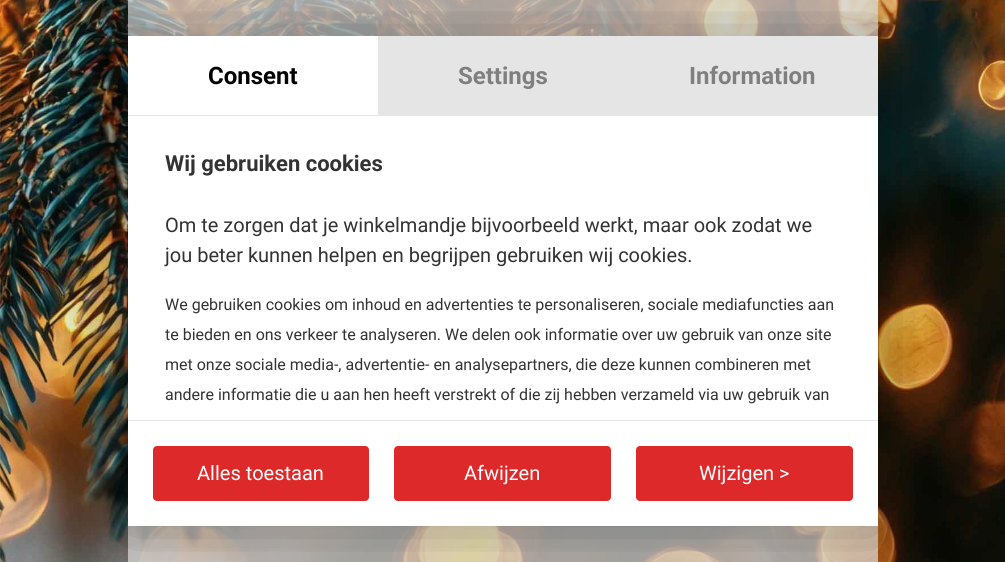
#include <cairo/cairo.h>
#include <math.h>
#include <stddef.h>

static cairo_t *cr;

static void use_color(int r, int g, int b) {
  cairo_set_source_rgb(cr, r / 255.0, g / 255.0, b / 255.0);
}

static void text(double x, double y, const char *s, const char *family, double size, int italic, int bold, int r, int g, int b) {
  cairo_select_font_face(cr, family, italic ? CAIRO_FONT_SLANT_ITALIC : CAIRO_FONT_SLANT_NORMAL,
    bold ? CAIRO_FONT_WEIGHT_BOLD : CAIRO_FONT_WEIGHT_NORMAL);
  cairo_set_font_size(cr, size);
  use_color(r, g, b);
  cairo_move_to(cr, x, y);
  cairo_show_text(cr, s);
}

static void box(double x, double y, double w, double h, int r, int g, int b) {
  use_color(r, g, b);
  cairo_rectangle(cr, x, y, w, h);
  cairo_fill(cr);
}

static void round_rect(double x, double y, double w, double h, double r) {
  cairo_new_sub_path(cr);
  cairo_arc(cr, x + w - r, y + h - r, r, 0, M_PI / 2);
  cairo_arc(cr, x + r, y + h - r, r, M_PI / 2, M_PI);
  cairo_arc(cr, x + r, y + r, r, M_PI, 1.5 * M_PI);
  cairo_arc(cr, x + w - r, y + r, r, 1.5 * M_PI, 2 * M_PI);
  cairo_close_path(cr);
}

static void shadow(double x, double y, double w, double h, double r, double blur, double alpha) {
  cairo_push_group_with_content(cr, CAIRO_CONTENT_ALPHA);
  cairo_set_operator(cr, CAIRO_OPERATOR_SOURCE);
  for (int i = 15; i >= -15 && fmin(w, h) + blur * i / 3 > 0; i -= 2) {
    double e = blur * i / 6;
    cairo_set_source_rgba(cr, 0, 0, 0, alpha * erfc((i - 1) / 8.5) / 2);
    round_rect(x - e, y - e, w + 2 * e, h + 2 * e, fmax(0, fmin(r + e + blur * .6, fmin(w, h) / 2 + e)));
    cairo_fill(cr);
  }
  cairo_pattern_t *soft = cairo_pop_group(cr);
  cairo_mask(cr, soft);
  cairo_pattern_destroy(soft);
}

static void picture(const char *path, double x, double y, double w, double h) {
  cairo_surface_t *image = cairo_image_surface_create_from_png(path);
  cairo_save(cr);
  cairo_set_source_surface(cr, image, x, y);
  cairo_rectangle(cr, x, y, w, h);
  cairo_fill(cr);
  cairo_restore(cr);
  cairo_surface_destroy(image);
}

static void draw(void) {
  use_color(255, 255, 255);
  cairo_paint(cr);
  picture("img_01.png", 0, 0, 1005, 562);
  cairo_set_source_rgba(cr, 1, 1, 1, 0.7);
  cairo_new_path(cr);
  cairo_move_to(cr, 131, -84);
  cairo_line_to(cr, 874, -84);
  cairo_curve_to(cr, 876, -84, 878, -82, 878, -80);
  cairo_line_to(cr, 878, 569);
  cairo_line_to(cr, 128, 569);
  cairo_line_to(cr, 128, -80);
  cairo_curve_to(cr, 128, -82, 129, -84, 131, -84);
  cairo_close_path(cr);
  cairo_fill(cr);
  use_color(0, 0, 0);
  shadow(121, 30, 763, 503, 0, 37.5, 0.3);
  shadow(78, -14, 850, 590, 0, 56, 0.1);
  box(128, 36, 750, 490, 255, 255, 255);
  box(378, 36, 500, 79, 229, 229, 229);
  box(128, 115, 750, 1, 230, 230, 230);
  box(128, 420, 750, 1, 230, 230, 230);
  use_color(222, 41, 42);
  round_rect(153, 446, 216, 55, 4);
  cairo_fill(cr);
  round_rect(394, 446, 217, 55, 4);
  cairo_fill(cr);
  round_rect(636, 446, 217, 55, 4);
  cairo_fill(cr);
  text(208, 84, "Consent", "Roboto", 24, 0, 1, 0, 0, 0);
  text(458, 84, "Settings", "Roboto", 24, 0, 1, 127, 127, 127);
  text(689, 84, "Information", "Roboto", 24, 0, 1, 127, 127, 127);
  text(165, 171, "Wij gebruiken cookies", "Roboto", 22, 0, 1, 51, 51, 51);
  text(165, 232, "Om te zorgen dat je winkelmandje bijvoorbeeld werkt, maar ook zodat we", "Roboto", 20, 0, 0, 51, 51, 51);
  text(165, 262, "jou beter kunnen helpen en begrijpen gebruiken wij cookies.", "Roboto", 20, 0, 0, 51, 51, 51);
  text(165, 310, "We gebruiken cookies om inhoud en advertenties te personaliseren, sociale mediafuncties aan", "Roboto", 16, 0, 0, 51, 51, 51);
  text(165, 340, "te bieden en ons verkeer te analyseren. We delen ook informatie over uw gebruik van onze site", "Roboto", 16, 0, 0, 51, 51, 51);
  text(165, 370, "met onze sociale media-, advertentie- en analysepartners, die deze kunnen combineren met", "Roboto", 16, 0, 0, 51, 51, 51);
  text(165, 400, "andere informatie die u aan hen heeft verstrekt of die zij hebben verzameld via uw gebruik van", "Roboto", 16, 0, 0, 51, 51, 51);
  text(197, 480, "Alles toestaan", "Roboto", 20, 0, 0, 255, 255, 255);
  text(464, 480, "Afwijzen", "Roboto", 20, 0, 0, 255, 255, 255);
  text(699, 480, "Wijzigen >", "Roboto", 20, 0, 0, 255, 255, 255);
}

int main(void) {
  cairo_surface_t *surface = cairo_image_surface_create(CAIRO_FORMAT_RGB24, 1005, 562);
  cr = cairo_create(surface);
  cairo_font_options_t *options = cairo_font_options_create();
  cairo_font_options_set_hint_metrics(options, CAIRO_HINT_METRICS_OFF);
  cairo_font_options_set_hint_style(options, CAIRO_HINT_STYLE_NONE);
  cairo_set_font_options(cr, options);
  cairo_set_miter_limit(cr, 4);
  draw();
  cairo_surface_write_to_png(surface, "out.png");
  cairo_font_options_destroy(options);
  cairo_destroy(cr);
  cairo_surface_destroy(surface);
  return 0;
}
